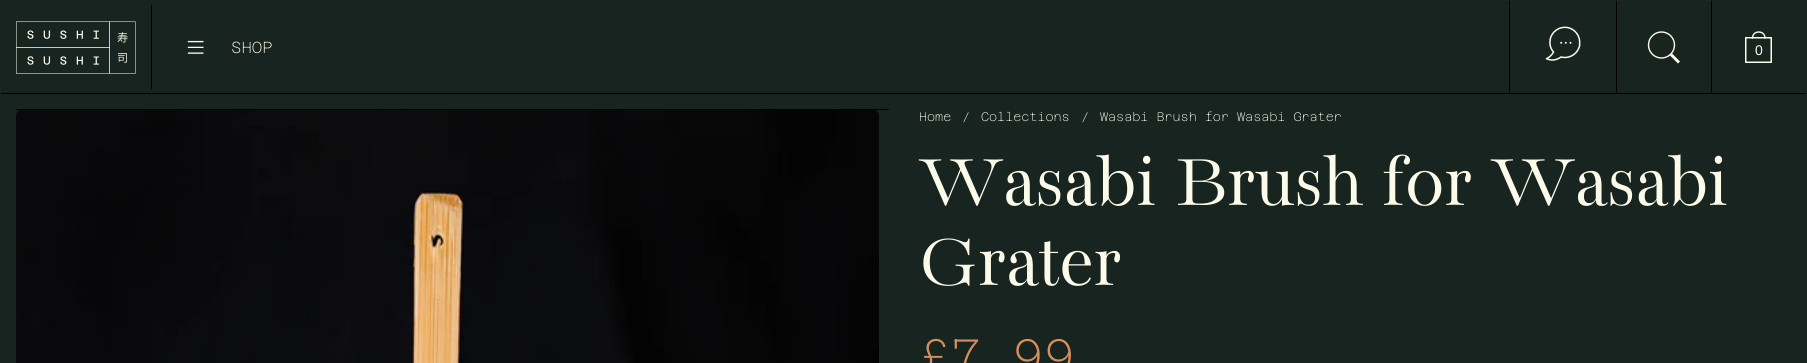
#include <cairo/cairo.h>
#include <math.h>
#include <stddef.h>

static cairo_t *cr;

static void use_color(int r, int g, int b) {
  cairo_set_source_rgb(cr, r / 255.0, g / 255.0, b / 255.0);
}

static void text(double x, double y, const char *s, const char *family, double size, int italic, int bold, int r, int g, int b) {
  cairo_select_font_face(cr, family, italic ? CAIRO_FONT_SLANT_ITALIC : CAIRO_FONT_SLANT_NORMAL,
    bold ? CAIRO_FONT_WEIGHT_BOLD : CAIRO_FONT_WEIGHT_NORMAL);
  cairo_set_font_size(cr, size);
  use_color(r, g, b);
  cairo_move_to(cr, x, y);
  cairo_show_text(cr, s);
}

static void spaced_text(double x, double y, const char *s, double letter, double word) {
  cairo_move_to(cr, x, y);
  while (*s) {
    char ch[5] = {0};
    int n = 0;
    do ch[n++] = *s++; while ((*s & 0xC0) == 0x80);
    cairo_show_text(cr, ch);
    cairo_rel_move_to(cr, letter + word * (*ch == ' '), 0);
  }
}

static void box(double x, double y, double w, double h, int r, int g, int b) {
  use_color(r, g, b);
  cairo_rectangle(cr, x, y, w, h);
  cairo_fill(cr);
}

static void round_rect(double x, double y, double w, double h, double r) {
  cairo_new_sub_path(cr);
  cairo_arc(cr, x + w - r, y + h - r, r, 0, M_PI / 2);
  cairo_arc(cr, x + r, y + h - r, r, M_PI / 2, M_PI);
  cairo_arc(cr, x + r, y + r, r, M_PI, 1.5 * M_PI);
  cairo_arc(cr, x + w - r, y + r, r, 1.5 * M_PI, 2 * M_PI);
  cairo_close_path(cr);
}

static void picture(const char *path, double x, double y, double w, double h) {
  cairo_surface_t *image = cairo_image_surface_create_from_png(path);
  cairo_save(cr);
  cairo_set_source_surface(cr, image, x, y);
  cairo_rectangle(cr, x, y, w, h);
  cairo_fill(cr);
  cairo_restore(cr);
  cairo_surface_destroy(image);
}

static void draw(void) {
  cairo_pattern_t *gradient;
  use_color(23, 36, 32);
  cairo_paint(cr);
  box(1, 93, 1805, 1, 0, 0, 0);
  picture("img_01.png", 16, 21, 120, 53);
  box(151, 5, 1, 84, 0, 0, 0);
  picture("img_02.png", 187, 40, 17, 14);
  box(1509, 1, 1, 92, 0, 0, 0);
  picture("img_03.png", 1545, 26, 36, 35);
  box(1616, 1, 1, 92, 0, 0, 0);
  cairo_arc(cr, 1661.5, 45, 13, 0, 2 * M_PI);
  use_color(252, 250, 232);
  cairo_set_line_width(cr, 1.4);
  cairo_stroke(cr);
  cairo_new_path(cr);
  cairo_move_to(cr, 1670.5, 54);
  cairo_line_to(cr, 1679, 62.5);
  cairo_set_line_width(cr, 2.9);
  cairo_stroke(cr);
  box(1711, 1, 1, 92, 0, 0, 0);
  cairo_new_path(cr);
  cairo_move_to(cr, 1752.5, 38);
  cairo_curve_to(cr, 1752.5, 30, 1765, 30, 1765, 38);
  use_color(252, 250, 232);
  cairo_set_line_width(cr, 1.4);
  cairo_set_line_cap(cr, CAIRO_LINE_CAP_ROUND);
  cairo_set_line_join(cr, CAIRO_LINE_JOIN_ROUND);
  cairo_stroke(cr);
  cairo_rectangle(cr, 1745.75, 37.75, 25.5, 24.5);
  cairo_set_line_width(cr, 1.5);
  cairo_set_line_cap(cr, CAIRO_LINE_CAP_BUTT);
  cairo_set_line_join(cr, CAIRO_LINE_JOIN_MITER);
  cairo_stroke(cr);
  box(16, 109, 873, 1, 0, 0, 0);
  gradient = cairo_pattern_create_linear(448, 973, 448, 110);
  cairo_pattern_add_color_stop_rgba(gradient, 0, 0.09, 0.141, 0.125, 1);
  cairo_pattern_add_color_stop_rgba(gradient, 0.5, 0.09, 0.141, 0.125, 1);
  cairo_pattern_add_color_stop_rgba(gradient, 1, 0.114, 0.114, 0.106, 1);
  cairo_set_source(cr, gradient);
  cairo_pattern_destroy(gradient);
  round_rect(16, 110, 863, 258, 5);
  cairo_fill(cr);
  picture("img_04.png", 16, 110, 863, 253);
  text(231, 53, "SHOP", "Azeret Mono Thin", 16, 0, 0, 252, 250, 232);
  text(1755, 55, "0", "Liberation Sans", 14, 0, 0, 252, 250, 232);
  text(919, 121, "Home", "Azeret Mono Thin", 12.4, 0, 0, 252, 250, 232);
  text(962, 121, "/", "Azeret Mono Thin", 12.4, 0, 0, 252, 250, 232);
  text(981, 121, "Collections", "Azeret Mono Thin", 12.4, 0, 0, 252, 250, 232);
  text(1081, 121, "/", "Azeret Mono Thin", 12.4, 0, 0, 252, 250, 232);
  text(1100, 121, "Wasabi Brush for Wasabi Grater", "Azeret Mono Thin", 12.4, 0, 0, 252, 250, 232);
  cairo_select_font_face(cr, "Bacasime Antique", CAIRO_FONT_SLANT_NORMAL, CAIRO_FONT_WEIGHT_NORMAL);
  cairo_set_font_size(cr, 80);
  spaced_text(919, 205, "Wasabi Brush for Wasabi", -0.8, 0);
  spaced_text(919, 285, "Grater", -0.8, 0);
  text(919, 373, "£7.99", "Azeret Mono Thin", 48, 0, 0, 214, 143, 92);
}

int main(void) {
  cairo_surface_t *surface = cairo_image_surface_create(CAIRO_FORMAT_RGB24, 1807, 363);
  cr = cairo_create(surface);
  cairo_font_options_t *options = cairo_font_options_create();
  cairo_font_options_set_hint_metrics(options, CAIRO_HINT_METRICS_OFF);
  cairo_font_options_set_hint_style(options, CAIRO_HINT_STYLE_NONE);
  cairo_set_font_options(cr, options);
  cairo_set_miter_limit(cr, 4);
  draw();
  cairo_surface_write_to_png(surface, "out.png");
  cairo_font_options_destroy(options);
  cairo_destroy(cr);
  cairo_surface_destroy(surface);
  return 0;
}
